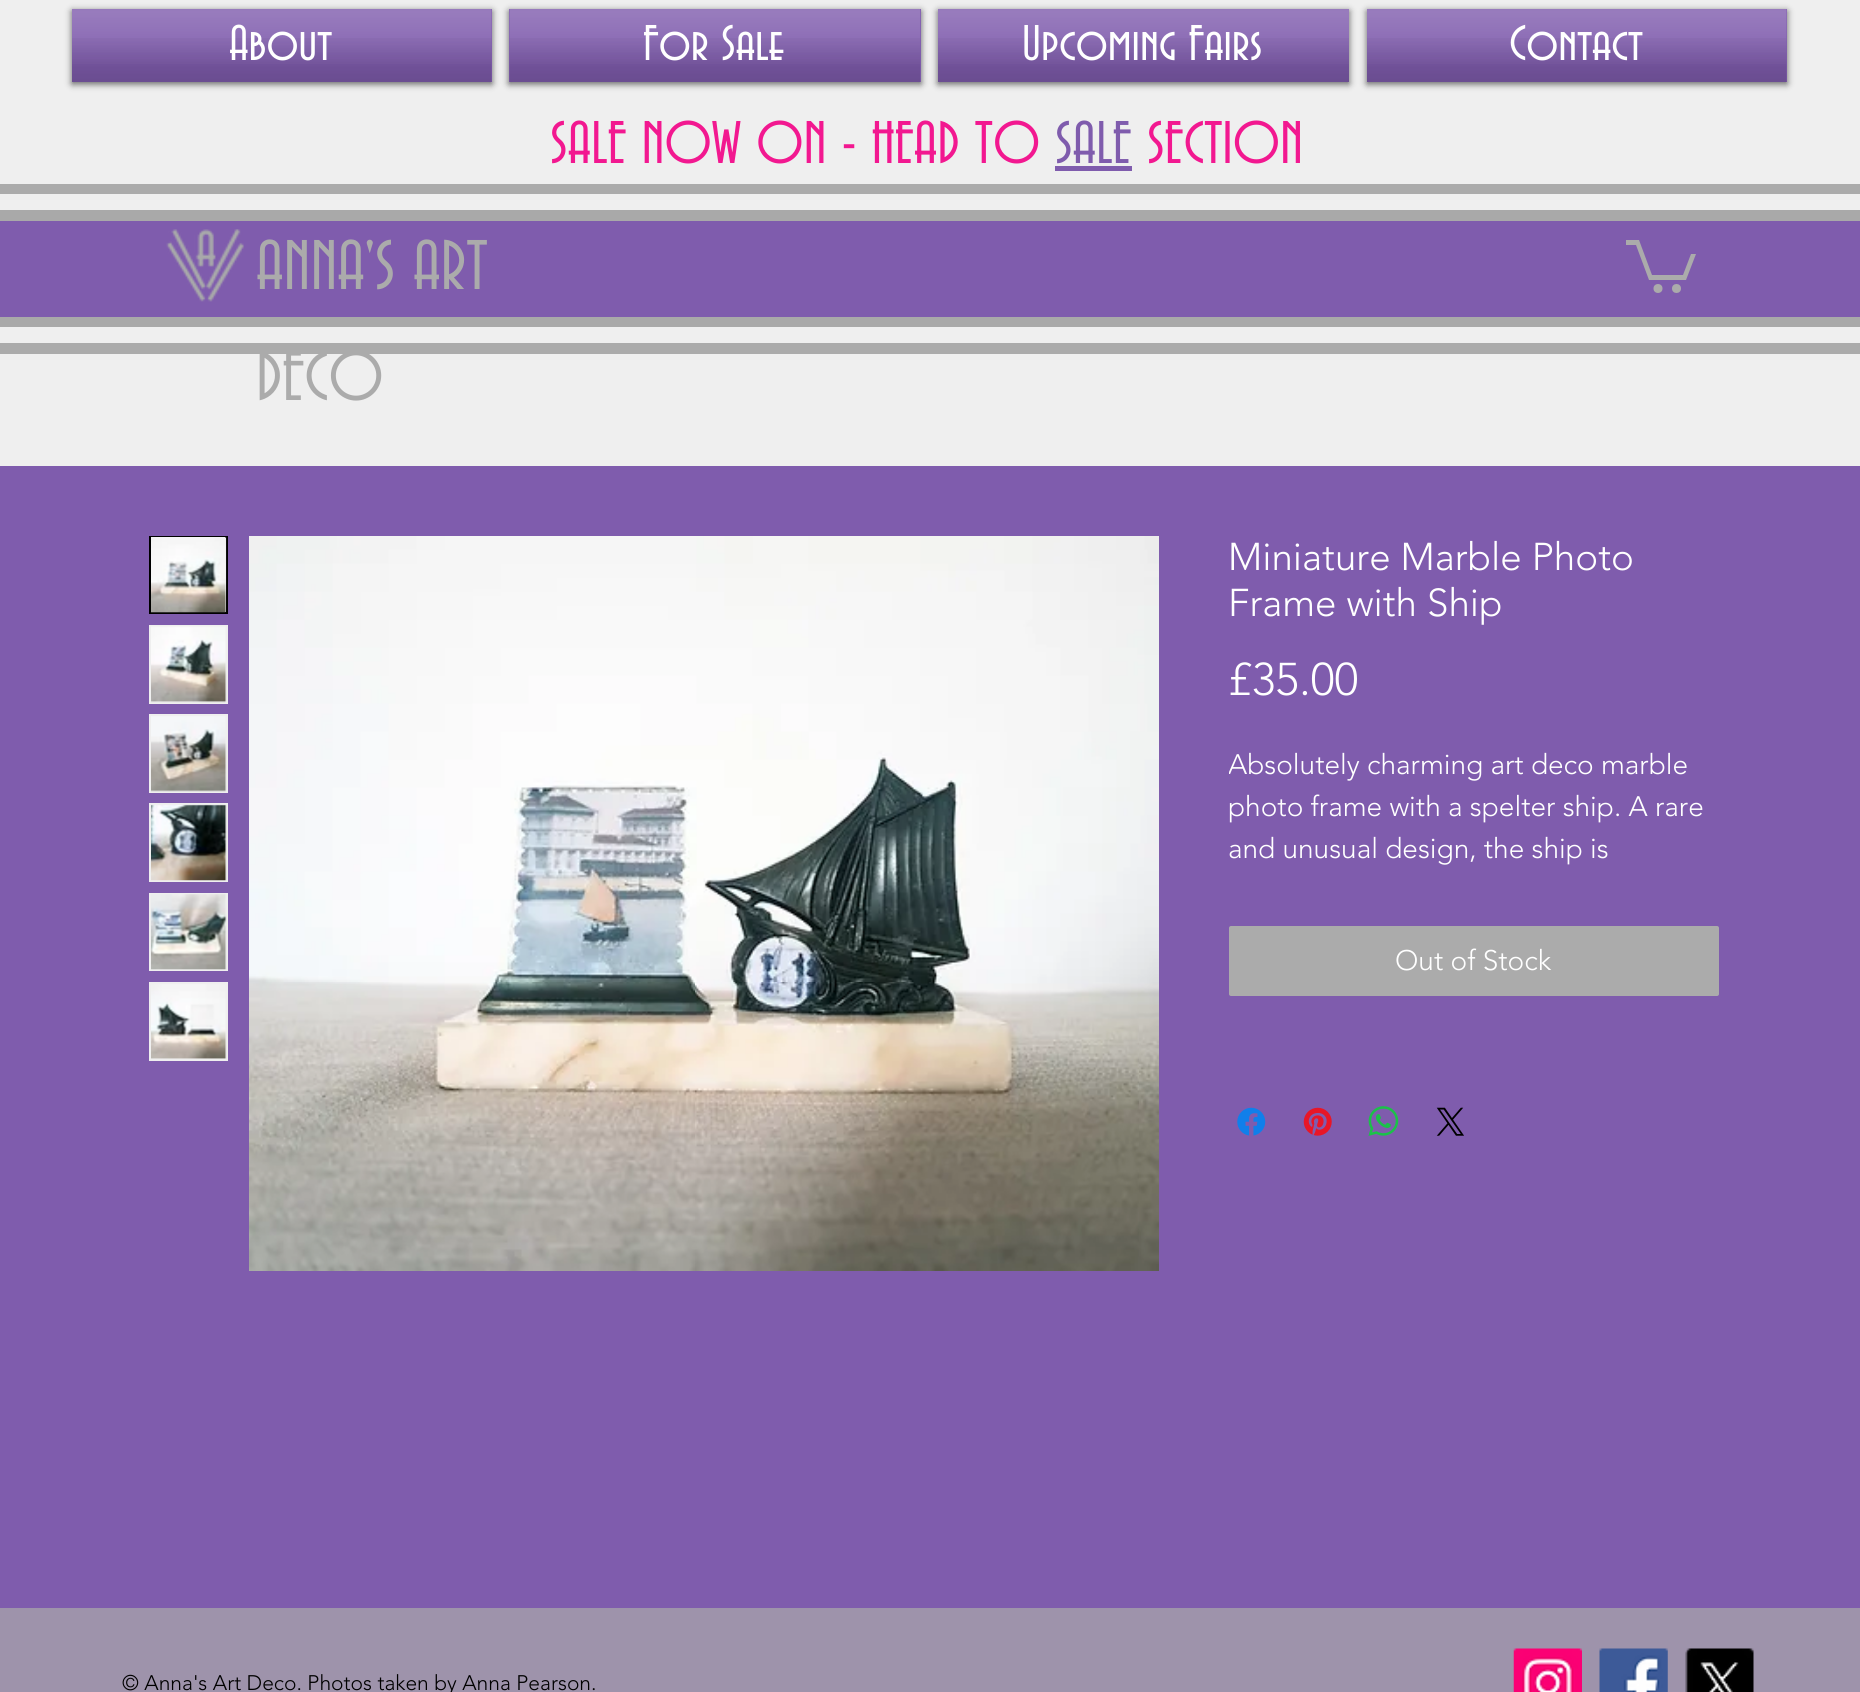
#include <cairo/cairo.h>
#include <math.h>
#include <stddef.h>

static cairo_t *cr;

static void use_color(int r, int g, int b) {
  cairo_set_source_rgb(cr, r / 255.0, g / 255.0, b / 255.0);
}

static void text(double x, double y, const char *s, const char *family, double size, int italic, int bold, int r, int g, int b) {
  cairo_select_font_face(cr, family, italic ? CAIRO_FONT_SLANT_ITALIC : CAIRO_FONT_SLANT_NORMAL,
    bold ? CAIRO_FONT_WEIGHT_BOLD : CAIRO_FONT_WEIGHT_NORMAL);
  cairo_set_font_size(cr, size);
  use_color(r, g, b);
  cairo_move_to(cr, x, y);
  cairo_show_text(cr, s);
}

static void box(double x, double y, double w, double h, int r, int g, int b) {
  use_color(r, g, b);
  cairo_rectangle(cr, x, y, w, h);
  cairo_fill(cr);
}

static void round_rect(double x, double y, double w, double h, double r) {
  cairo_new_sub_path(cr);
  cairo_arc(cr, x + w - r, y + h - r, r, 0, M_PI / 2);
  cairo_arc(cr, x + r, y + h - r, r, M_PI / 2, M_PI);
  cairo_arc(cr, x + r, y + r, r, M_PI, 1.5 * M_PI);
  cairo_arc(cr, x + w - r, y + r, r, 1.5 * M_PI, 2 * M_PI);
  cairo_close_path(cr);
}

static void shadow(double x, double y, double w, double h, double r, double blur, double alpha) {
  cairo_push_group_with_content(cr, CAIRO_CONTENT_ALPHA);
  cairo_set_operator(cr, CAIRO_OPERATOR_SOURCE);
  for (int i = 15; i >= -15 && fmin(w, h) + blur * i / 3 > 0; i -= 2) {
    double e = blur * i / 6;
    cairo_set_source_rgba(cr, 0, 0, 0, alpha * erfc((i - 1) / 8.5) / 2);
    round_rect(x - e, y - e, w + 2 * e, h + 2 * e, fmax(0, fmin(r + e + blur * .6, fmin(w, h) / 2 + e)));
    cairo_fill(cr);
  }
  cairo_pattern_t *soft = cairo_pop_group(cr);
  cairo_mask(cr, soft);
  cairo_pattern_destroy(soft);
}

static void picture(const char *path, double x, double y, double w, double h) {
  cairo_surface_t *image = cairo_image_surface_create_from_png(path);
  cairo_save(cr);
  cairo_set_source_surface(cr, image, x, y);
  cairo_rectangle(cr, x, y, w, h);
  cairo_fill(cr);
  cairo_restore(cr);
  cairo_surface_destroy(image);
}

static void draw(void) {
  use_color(127, 92, 173);
  cairo_paint(cr);
  box(0, 0, 1860, 466, 239, 239, 239);
  use_color(0, 0, 0);
  shadow(72, 11, 420, 73, 0, 3.5, 0.6);
  box(72, 9, 420, 73, 127, 92, 173);
  picture("img_01.png", 72, 9, 420, 55);
  picture("img_02.png", 72, 38, 420, 44);
  use_color(0, 0, 0);
  shadow(509, 11, 412, 73, 0, 3.5, 0.6);
  box(509, 9, 412, 73, 127, 92, 173);
  picture("img_03.png", 509, 9, 412, 55);
  picture("img_04.png", 509, 38, 412, 44);
  use_color(0, 0, 0);
  shadow(938, 11, 411, 73, 0, 3.5, 0.6);
  box(938, 9, 411, 73, 127, 92, 173);
  picture("img_05.png", 938, 9, 411, 55);
  picture("img_06.png", 938, 38, 411, 44);
  use_color(0, 0, 0);
  shadow(1367, 11, 420, 73, 0, 3.5, 0.6);
  box(1367, 9, 420, 73, 127, 92, 173);
  picture("img_01.png", 1367, 9, 420, 55);
  picture("img_02.png", 1367, 38, 420, 44);
  box(1055, 166, 77, 5, 127, 92, 173);
  box(0, 184, 1860, 10, 171, 171, 171);
  box(0, 343, 1860, 11, 171, 171, 171);
  box(0, 210, 1860, 11, 169, 169, 169);
  box(0, 317, 1860, 10, 169, 169, 169);
  box(0, 221, 1860, 96, 127, 92, 173);
  picture("img_07.png", 166, 229, 78, 73);
  use_color(171, 171, 171);
  cairo_new_path(cr);
  cairo_move_to(cr, 1696, 254);
  cairo_line_to(cr, 1686, 280);
  cairo_line_to(cr, 1649, 280);
  cairo_line_to(cr, 1636, 245);
  cairo_line_to(cr, 1626, 245);
  cairo_line_to(cr, 1626, 240);
  cairo_line_to(cr, 1639, 240);
  cairo_line_to(cr, 1652, 275);
  cairo_line_to(cr, 1683, 275);
  cairo_line_to(cr, 1691, 254);
  cairo_fill(cr);
  cairo_arc(cr, 1676.5, 288.5, 4.5, 0, 2 * M_PI);
  cairo_fill(cr);
  cairo_arc(cr, 1658, 288.5, 4.5, 0, 2 * M_PI);
  cairo_fill(cr);
  box(225, 538, 1, 74, 239, 239, 239);
  cairo_rectangle(cr, 150, 537, 77, 76);
  use_color(0, 0, 0);
  cairo_stroke(cr);
  picture("img_08.png", 151, 537, 76, 76);
  box(149, 625, 79, 79, 239, 239, 239);
  picture("img_09.png", 151, 626, 76, 77);
  box(149, 714, 79, 79, 239, 239, 239);
  picture("img_10.png", 151, 716, 76, 76);
  box(149, 803, 79, 79, 239, 239, 239);
  picture("img_11.png", 151, 804, 76, 77);
  box(149, 893, 79, 78, 239, 239, 239);
  picture("img_12.png", 151, 894, 76, 76);
  box(149, 982, 79, 79, 239, 239, 239);
  picture("img_13.png", 151, 984, 76, 75);
  picture("img_14.png", 249, 536, 910, 735);
  use_color(171, 171, 171);
  round_rect(1229, 926, 490, 70, 2);
  cairo_fill(cr);
  picture("img_15.png", 1237, 1107, 29, 29);
  picture("img_16.png", 1303, 1107, 29, 29);
  picture("img_17.png", 1368, 1106, 31, 30);
  picture("img_18.png", 1436, 1107, 28, 29);
  box(0, 1608, 1860, 84, 158, 147, 171);
  picture("img_19.png", 1513, 1648, 69, 44);
  picture("img_20.png", 1599, 1648, 69, 44);
  picture("img_21.png", 1685, 1648, 69, 44);
  text(229, 60, "About", "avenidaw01", 52.5, 0, 0, 255, 255, 255);
  text(643, 60, "For Sale", "avenidaw01", 52.5, 0, 0, 255, 255, 255);
  text(1022, 60, "Upcoming Fairs", "avenidaw01", 52.5, 0, 0, 255, 255, 255);
  text(1509, 60, "Contact", "avenidaw01", 52.5, 0, 0, 255, 255, 255);
  text(550, 163, "SALE NOW ON - HEAD TO", "avenidaw01", 63, 0, 0, 242, 24, 144);
  text(1055, 163, "SALE", "avenidaw01", 63, 0, 0, 127, 92, 173);
  text(1147, 163, "SECTION", "avenidaw01", 63, 0, 0, 242, 24, 144);
  text(256, 289, "ANNA'S ART", "avenidaw01", 73.5, 0, 0, 171, 171, 171);
  text(256, 400, "DECO", "avenidaw01", 73.5, 0, 0, 171, 171, 171);
  text(1228, 570, "Miniature Marble Photo", "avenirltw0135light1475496 Light", 38.5, 0, 0, 255, 255, 255);
  text(1228, 616, "Frame with Ship", "avenirltw0135light1475496 Light", 38.5, 0, 0, 255, 255, 255);
  text(1228, 695, "£35.00", "avenirltw0135light1475496 Light", 45.5, 0, 0, 255, 255, 255);
  cairo_save(cr);
  cairo_rectangle(cr, 1229, 744, 490, 126);
  cairo_clip(cr);
  text(1228, 774, "Absolutely charming art deco marble", "avenirltw0135light1475496 Light", 28, 0, 0, 255, 255, 255);
  cairo_restore(cr);
  text(1228, 816, "photo frame with a spelter ship. A rare", "avenirltw0135light1475496 Light", 28, 0, 0, 255, 255, 255);
  text(1228, 858, "and unusual design, the ship is", "avenirltw0135light1475496 Light", 28, 0, 0, 255, 255, 255);
  text(1395, 970, "Out of Stock", "avenirltw0135light1475496 Light", 28, 0, 0, 255, 255, 255);
  text(122, 1690, "© Anna's Art Deco. Photos taken by Anna Pearson.", "avenirltw0135light1475496 Light", 21, 0, 0, 0, 0, 0);
}

int main(void) {
  cairo_surface_t *surface = cairo_image_surface_create(CAIRO_FORMAT_RGB24, 1860, 1692);
  cr = cairo_create(surface);
  cairo_font_options_t *options = cairo_font_options_create();
  cairo_font_options_set_hint_metrics(options, CAIRO_HINT_METRICS_OFF);
  cairo_font_options_set_hint_style(options, CAIRO_HINT_STYLE_NONE);
  cairo_set_font_options(cr, options);
  cairo_set_miter_limit(cr, 4);
  draw();
  cairo_surface_write_to_png(surface, "out.png");
  cairo_font_options_destroy(options);
  cairo_destroy(cr);
  cairo_surface_destroy(surface);
  return 0;
}
